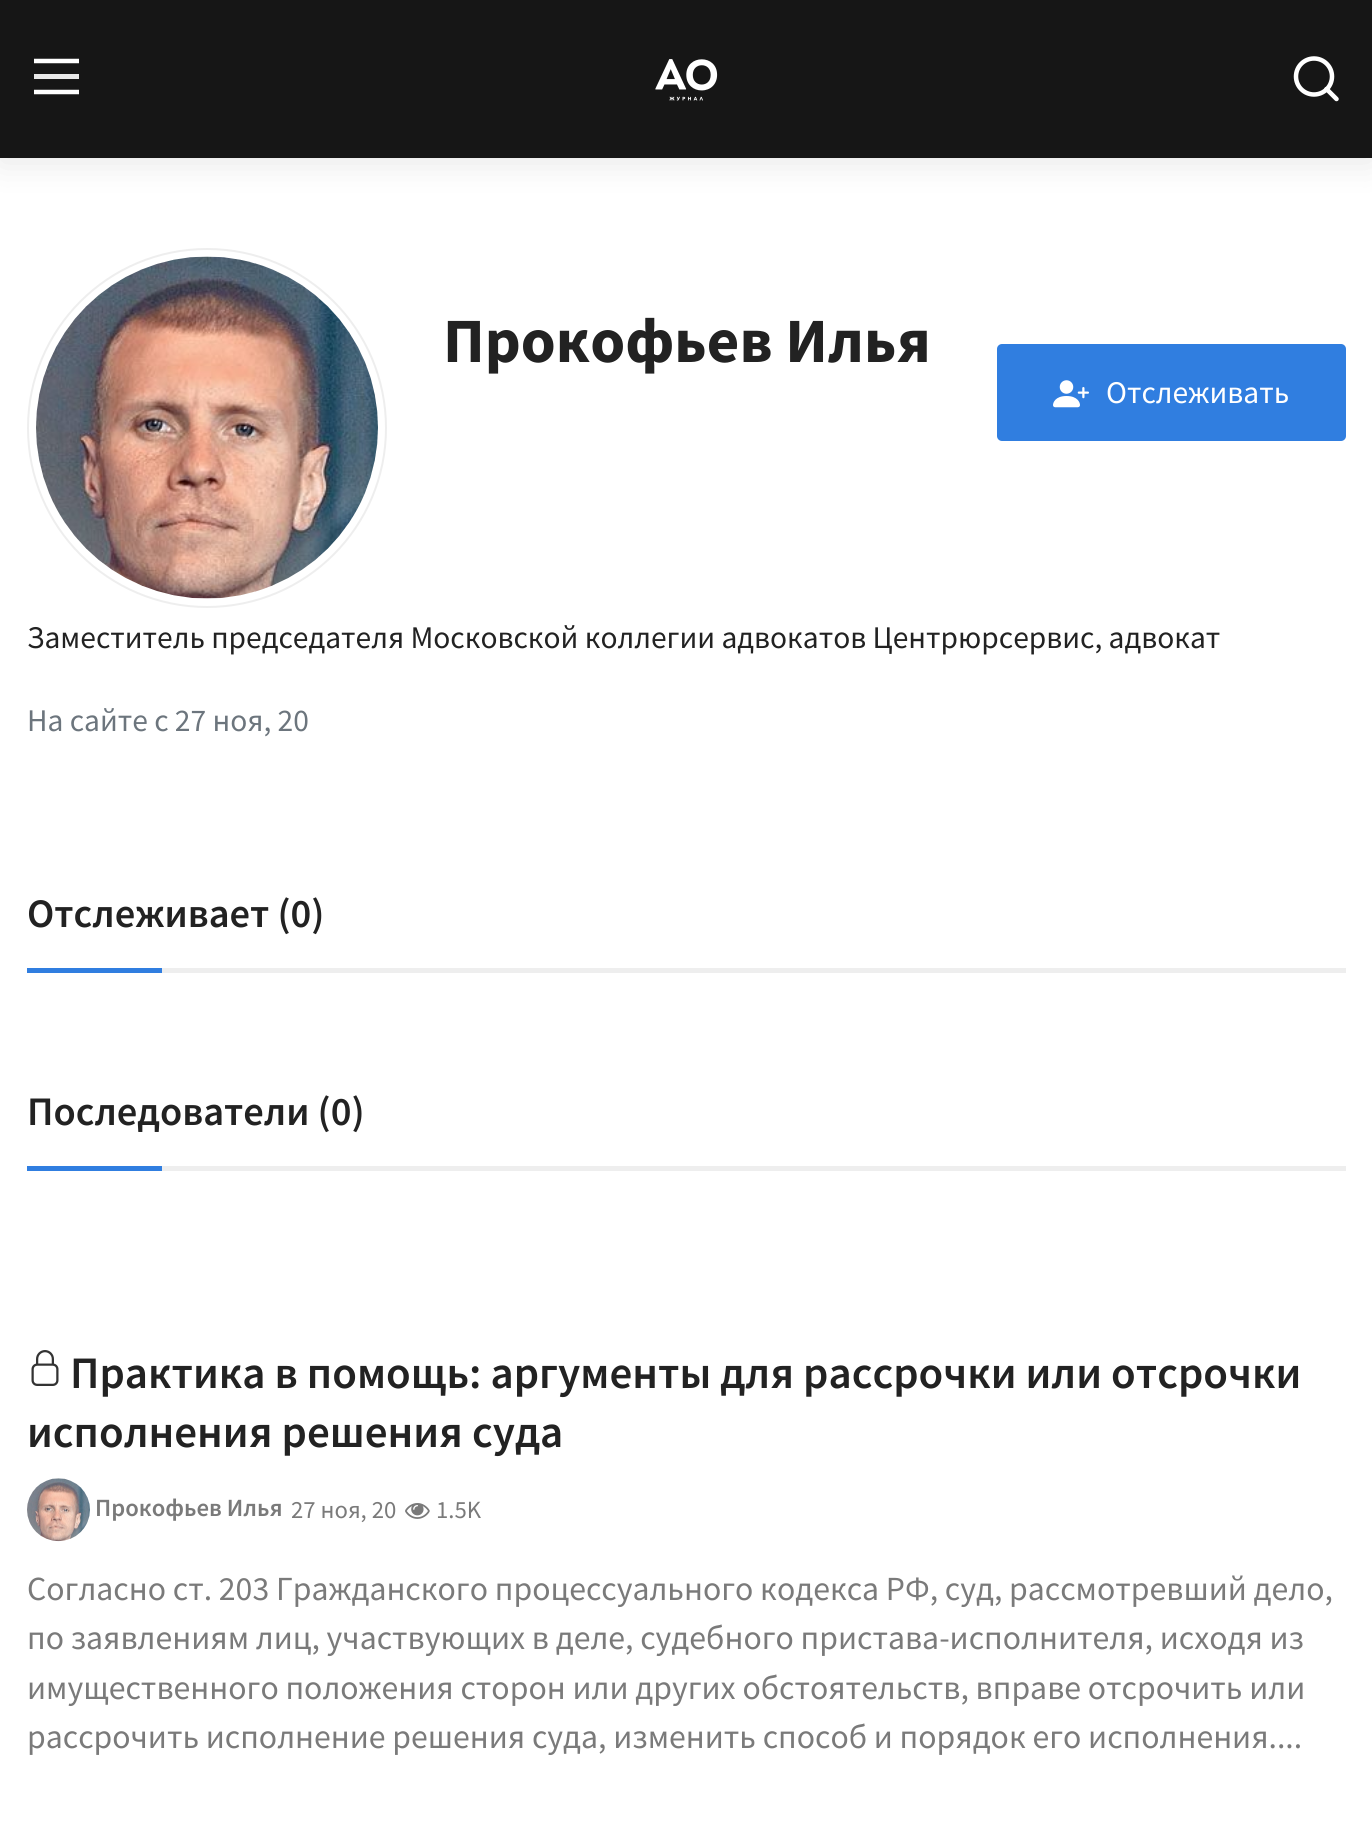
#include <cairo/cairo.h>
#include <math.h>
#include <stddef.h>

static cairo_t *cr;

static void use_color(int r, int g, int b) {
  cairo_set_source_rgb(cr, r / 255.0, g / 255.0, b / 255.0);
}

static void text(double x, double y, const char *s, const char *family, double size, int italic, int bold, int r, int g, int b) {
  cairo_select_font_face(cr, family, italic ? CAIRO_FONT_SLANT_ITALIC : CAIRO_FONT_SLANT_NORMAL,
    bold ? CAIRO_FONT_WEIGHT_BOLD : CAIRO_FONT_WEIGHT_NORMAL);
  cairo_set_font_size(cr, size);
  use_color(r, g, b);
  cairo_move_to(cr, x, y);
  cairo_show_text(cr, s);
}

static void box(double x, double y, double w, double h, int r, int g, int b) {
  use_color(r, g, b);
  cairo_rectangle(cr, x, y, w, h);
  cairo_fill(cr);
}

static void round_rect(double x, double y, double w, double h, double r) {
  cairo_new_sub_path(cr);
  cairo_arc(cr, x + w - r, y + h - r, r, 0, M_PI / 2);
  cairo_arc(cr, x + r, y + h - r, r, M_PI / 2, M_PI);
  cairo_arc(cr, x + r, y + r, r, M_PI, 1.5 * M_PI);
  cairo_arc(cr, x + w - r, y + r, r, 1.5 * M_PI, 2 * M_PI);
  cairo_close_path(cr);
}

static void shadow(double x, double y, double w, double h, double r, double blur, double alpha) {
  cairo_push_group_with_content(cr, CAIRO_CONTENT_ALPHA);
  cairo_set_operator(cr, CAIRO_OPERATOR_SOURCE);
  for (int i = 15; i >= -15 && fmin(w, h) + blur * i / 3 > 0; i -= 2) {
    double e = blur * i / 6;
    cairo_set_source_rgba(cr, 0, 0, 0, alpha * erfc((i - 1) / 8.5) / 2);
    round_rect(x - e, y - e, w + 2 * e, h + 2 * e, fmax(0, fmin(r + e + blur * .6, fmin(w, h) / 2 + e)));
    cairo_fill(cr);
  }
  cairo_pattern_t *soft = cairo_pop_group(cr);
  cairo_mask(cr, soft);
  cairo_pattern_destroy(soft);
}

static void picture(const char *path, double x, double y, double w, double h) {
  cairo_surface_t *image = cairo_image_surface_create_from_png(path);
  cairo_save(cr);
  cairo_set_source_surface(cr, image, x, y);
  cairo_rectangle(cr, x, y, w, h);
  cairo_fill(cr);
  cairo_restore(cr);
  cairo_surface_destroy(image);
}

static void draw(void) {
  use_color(255, 255, 255);
  cairo_paint(cr);
  box(0, 0, 1372, 158, 22, 22, 22);
  cairo_save(cr);
  cairo_set_fill_rule(cr, CAIRO_FILL_RULE_EVEN_ODD);
  cairo_new_path(cr);
  cairo_move_to(cr, 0, 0);
  cairo_line_to(cr, 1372, 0);
  cairo_line_to(cr, 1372, 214);
  cairo_line_to(cr, 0, 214);
  cairo_close_path(cr);
  cairo_move_to(cr, 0, 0);
  cairo_line_to(cr, 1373, 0);
  cairo_line_to(cr, 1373, 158);
  cairo_line_to(cr, 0, 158);
  cairo_close_path(cr);
  cairo_clip(cr);
  use_color(0, 0, 0);
  shadow(0, 5, 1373, 157, 0, 17, 0.1);
  cairo_restore(cr);
  cairo_new_path(cr);
  cairo_move_to(cr, 34, 61);
  cairo_line_to(cr, 79, 61);
  use_color(255, 255, 255);
  cairo_set_line_width(cr, 4.5);
  cairo_stroke(cr);
  box(34, 74, 45, 5, 232, 232, 232);
  cairo_new_path(cr);
  cairo_move_to(cr, 34, 92);
  cairo_line_to(cr, 79, 92);
  use_color(255, 255, 255);
  cairo_stroke(cr);
  picture("img_01.png", 655, 59, 63, 42);
  cairo_arc(cr, 1314, 76.5, 18, 0, 2 * M_PI);
  cairo_stroke(cr);
  cairo_new_path(cr);
  cairo_move_to(cr, 1336.5, 99);
  cairo_line_to(cr, 1326.5, 89);
  cairo_set_line_cap(cr, CAIRO_LINE_CAP_ROUND);
  cairo_set_line_join(cr, CAIRO_LINE_JOIN_ROUND);
  cairo_stroke(cr);
  cairo_arc(cr, 207, 428, 179, 0, 2 * M_PI);
  use_color(238, 238, 238);
  cairo_set_line_width(cr, 2);
  cairo_set_line_cap(cr, CAIRO_LINE_CAP_BUTT);
  cairo_set_line_join(cr, CAIRO_LINE_JOIN_MITER);
  cairo_stroke(cr);
  picture("img_02.png", 36, 256, 342, 343);
  use_color(48, 126, 224);
  round_rect(997, 344, 349, 97, 5);
  cairo_fill(cr);
  picture("img_03.png", 1053, 380, 36, 28);
  box(162, 968, 1184, 5, 238, 238, 238);
  box(27, 968, 135, 5, 48, 126, 224);
  box(162, 1166, 1184, 5, 238, 238, 238);
  box(27, 1166, 135, 5, 48, 126, 224);
  picture("img_04.png", 31, 1350, 28, 36);
  picture("img_05.png", 27, 1478, 63, 64);
  picture("img_06.png", 405, 1503, 25, 16);
  text(443, 362, "Прокофьев Илья", "Source Sans Pro", 63, 0, 1, 34, 34, 34);
  text(1106, 403, "Отслеживать", "Source Sans Pro", 31.5, 0, 0, 255, 255, 255);
  text(27, 648, "Заместитель председателя Московской коллегии адвокатов Центрюрсервис, адвокат", "Source Sans Pro", 31.5, 0, 0, 34, 34, 34);
  text(27, 731, "На сайте с 27 ноя, 20", "Source Sans Pro", 31.5, 0, 0, 108, 117, 125);
  text(27, 927, "Отслеживает (0)", "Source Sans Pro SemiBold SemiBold", 40.5, 0, 0, 34, 34, 34);
  text(27, 1125, "Последователи (0)", "Source Sans Pro SemiBold SemiBold", 40.5, 0, 0, 34, 34, 34);
  text(70, 1388, "Практика в помощь: аргументы для рассрочки или отсрочки", "Source Sans Pro SemiBold SemiBold", 45, 0, 0, 34, 34, 34);
  text(27, 1447, "исполнения решения суда", "Source Sans Pro SemiBold SemiBold", 45, 0, 0, 34, 34, 34);
  text(95, 1516, "Прокофьев Илья", "Source Sans Pro SemiBold SemiBold", 24.75, 0, 0, 122, 122, 122);
  text(291, 1518, "27 ноя, 20", "Source Sans Pro", 24.75, 0, 0, 122, 122, 122);
  text(436, 1518, "1.5K", "Source Sans Pro", 24.75, 0, 0, 122, 122, 122);
  text(27, 1600, "Согласно ст. 203 Гражданского процессуального кодекса РФ, суд, рассмотревший дело,", "Source Sans Pro", 33.75, 0, 0, 122, 122, 122);
  text(27, 1649, "по заявлениям лиц, участвующих в деле, судебного пристава-исполнителя, исходя из", "Source Sans Pro", 33.75, 0, 0, 122, 122, 122);
  text(27, 1699, "имущественного положения сторон или других обстоятельств, вправе отсрочить или", "Source Sans Pro", 33.75, 0, 0, 122, 122, 122);
  text(27, 1748, "рассрочить исполнение решения суда, изменить способ и порядок его исполнения....", "Source Sans Pro", 33.75, 0, 0, 122, 122, 122);
}

int main(void) {
  cairo_surface_t *surface = cairo_image_surface_create(CAIRO_FORMAT_RGB24, 1372, 1830);
  cr = cairo_create(surface);
  cairo_font_options_t *options = cairo_font_options_create();
  cairo_font_options_set_hint_metrics(options, CAIRO_HINT_METRICS_OFF);
  cairo_font_options_set_hint_style(options, CAIRO_HINT_STYLE_NONE);
  cairo_set_font_options(cr, options);
  cairo_set_miter_limit(cr, 4);
  draw();
  cairo_surface_write_to_png(surface, "out.png");
  cairo_font_options_destroy(options);
  cairo_destroy(cr);
  cairo_surface_destroy(surface);
  return 0;
}
